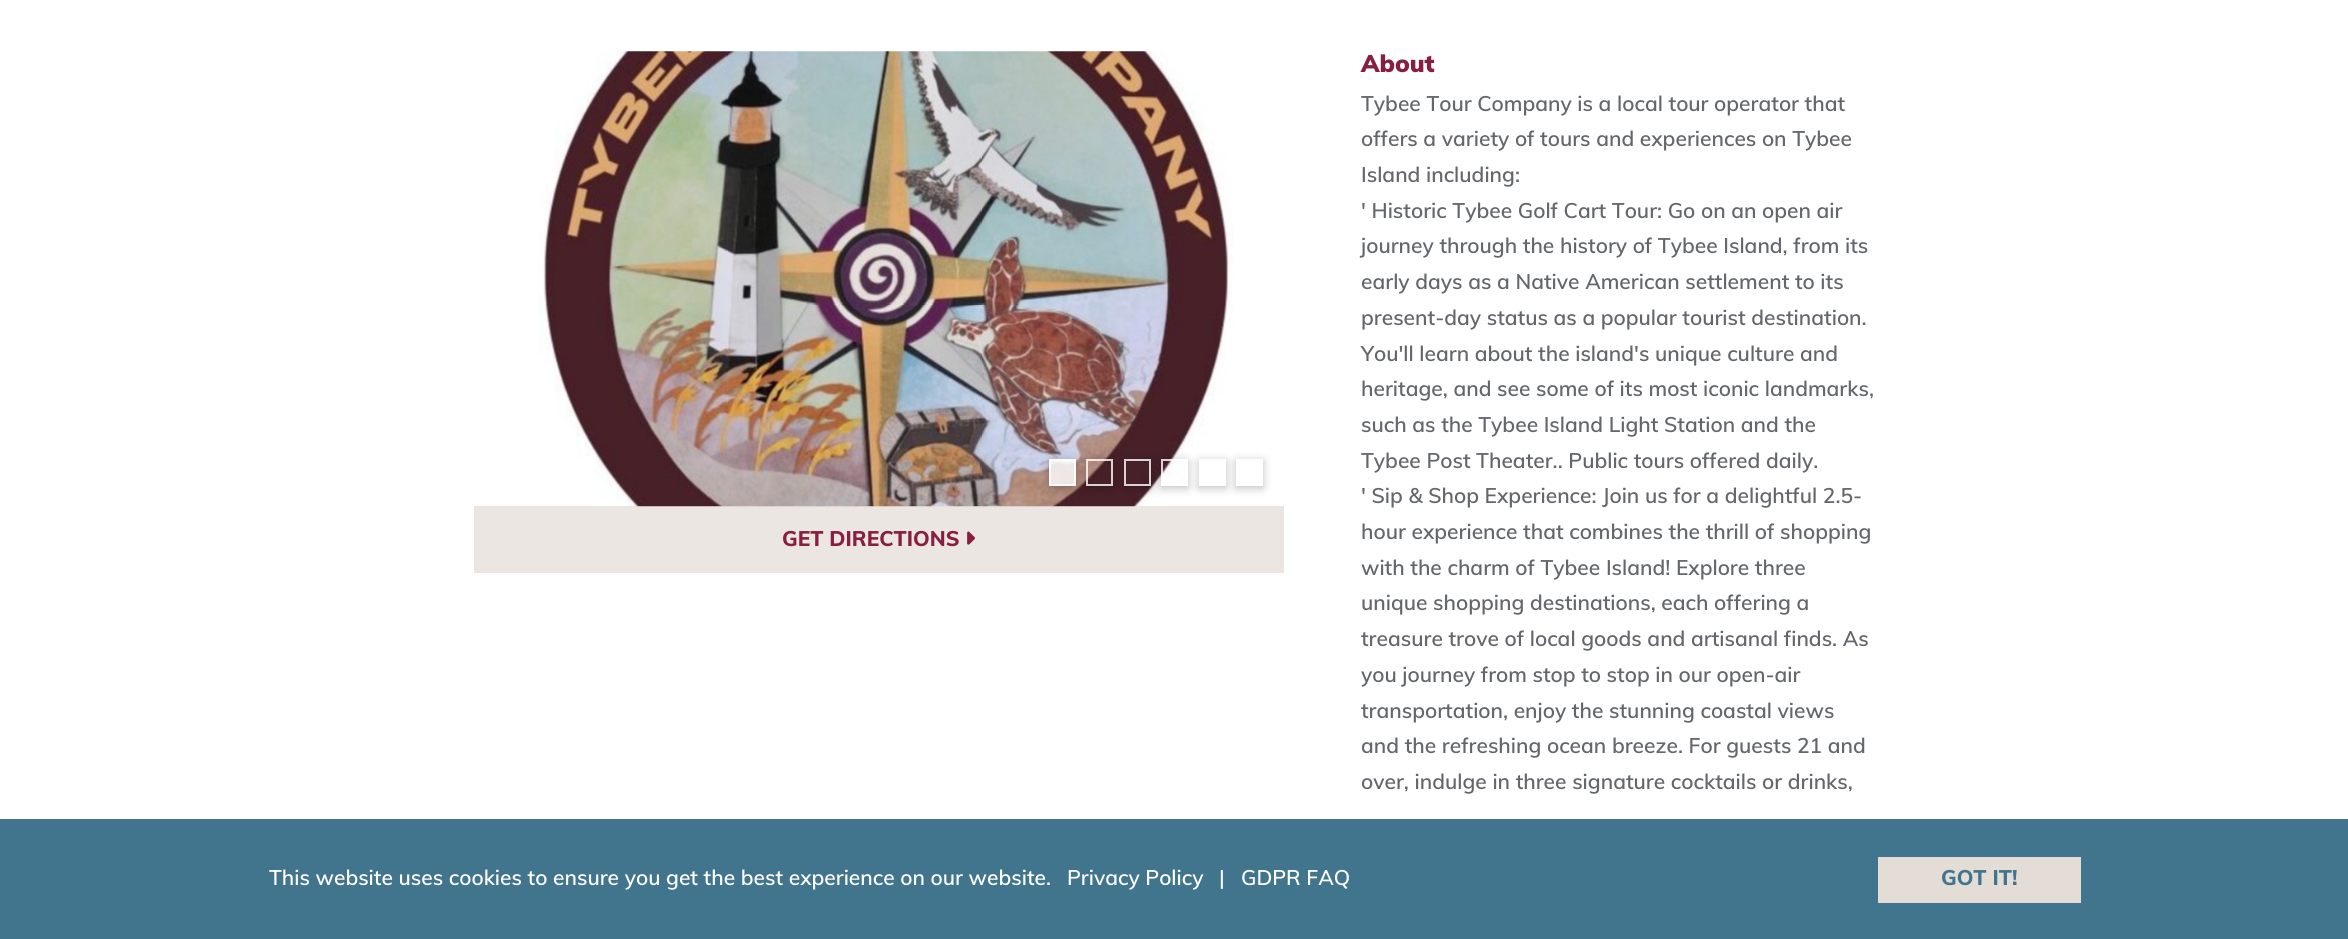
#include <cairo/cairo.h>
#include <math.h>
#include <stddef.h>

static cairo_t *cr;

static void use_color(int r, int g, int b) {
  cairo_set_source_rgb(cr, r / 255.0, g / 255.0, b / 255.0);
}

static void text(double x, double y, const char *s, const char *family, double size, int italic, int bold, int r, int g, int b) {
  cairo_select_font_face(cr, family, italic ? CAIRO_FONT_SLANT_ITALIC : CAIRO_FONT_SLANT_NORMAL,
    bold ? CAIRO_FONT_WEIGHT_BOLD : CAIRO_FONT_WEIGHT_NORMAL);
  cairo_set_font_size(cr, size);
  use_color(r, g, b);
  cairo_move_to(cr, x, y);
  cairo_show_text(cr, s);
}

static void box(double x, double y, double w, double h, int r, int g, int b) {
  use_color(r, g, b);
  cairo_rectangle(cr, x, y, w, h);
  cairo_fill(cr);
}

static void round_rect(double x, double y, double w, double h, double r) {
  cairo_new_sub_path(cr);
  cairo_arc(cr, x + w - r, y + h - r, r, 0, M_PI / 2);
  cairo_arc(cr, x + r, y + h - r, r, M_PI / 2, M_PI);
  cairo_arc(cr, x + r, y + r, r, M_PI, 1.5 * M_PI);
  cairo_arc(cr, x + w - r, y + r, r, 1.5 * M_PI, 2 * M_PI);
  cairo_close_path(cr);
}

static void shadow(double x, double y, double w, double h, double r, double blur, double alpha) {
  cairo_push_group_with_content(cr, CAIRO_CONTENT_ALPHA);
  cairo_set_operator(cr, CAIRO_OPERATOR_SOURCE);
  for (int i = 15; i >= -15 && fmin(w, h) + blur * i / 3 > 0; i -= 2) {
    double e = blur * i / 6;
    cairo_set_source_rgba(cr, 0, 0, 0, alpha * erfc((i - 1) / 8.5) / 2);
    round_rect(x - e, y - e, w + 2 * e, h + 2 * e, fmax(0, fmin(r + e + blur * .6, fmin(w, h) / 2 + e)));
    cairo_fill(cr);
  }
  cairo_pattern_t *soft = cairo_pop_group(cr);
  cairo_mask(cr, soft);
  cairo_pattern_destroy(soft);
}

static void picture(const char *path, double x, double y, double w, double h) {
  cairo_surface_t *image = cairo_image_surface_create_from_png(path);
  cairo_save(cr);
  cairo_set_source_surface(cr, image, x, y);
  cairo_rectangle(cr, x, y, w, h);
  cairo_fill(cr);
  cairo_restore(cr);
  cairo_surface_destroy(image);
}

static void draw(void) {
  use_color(255, 255, 255);
  cairo_paint(cr);
  picture("img_01.png", 538, 51, 696, 456);
  cairo_save(cr);
  cairo_set_fill_rule(cr, CAIRO_FILL_RULE_EVEN_ODD);
  cairo_new_path(cr);
  cairo_move_to(cr, 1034, 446);
  cairo_line_to(cr, 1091, 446);
  cairo_line_to(cr, 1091, 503);
  cairo_line_to(cr, 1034, 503);
  cairo_close_path(cr);
  cairo_move_to(cr, 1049, 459);
  cairo_line_to(cr, 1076, 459);
  cairo_line_to(cr, 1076, 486);
  cairo_line_to(cr, 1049, 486);
  cairo_close_path(cr);
  cairo_clip(cr);
  use_color(0, 0, 0);
  shadow(1049, 461, 27, 27, 0, 4.5, 0.25);
  cairo_restore(cr);
  cairo_set_source_rgba(cr, 1, 1, 1, 0.8);
  cairo_rectangle(cr, 1049, 459, 27, 27);
  cairo_fill(cr);
  cairo_rectangle(cr, 1050, 460, 25, 25);
  cairo_stroke(cr);
  cairo_save(cr);
  cairo_set_fill_rule(cr, CAIRO_FILL_RULE_EVEN_ODD);
  cairo_new_path(cr);
  cairo_move_to(cr, 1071, 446);
  cairo_line_to(cr, 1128, 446);
  cairo_line_to(cr, 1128, 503);
  cairo_line_to(cr, 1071, 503);
  cairo_close_path(cr);
  cairo_move_to(cr, 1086, 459);
  cairo_line_to(cr, 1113, 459);
  cairo_line_to(cr, 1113, 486);
  cairo_line_to(cr, 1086, 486);
  cairo_close_path(cr);
  cairo_clip(cr);
  use_color(0, 0, 0);
  shadow(1086, 461, 27, 27, 0, 4.5, 0.25);
  cairo_restore(cr);
  cairo_rectangle(cr, 1087, 460, 25, 25);
  cairo_stroke(cr);
  cairo_save(cr);
  cairo_set_fill_rule(cr, CAIRO_FILL_RULE_EVEN_ODD);
  cairo_new_path(cr);
  cairo_move_to(cr, 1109, 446);
  cairo_line_to(cr, 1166, 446);
  cairo_line_to(cr, 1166, 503);
  cairo_line_to(cr, 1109, 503);
  cairo_close_path(cr);
  cairo_move_to(cr, 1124, 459);
  cairo_line_to(cr, 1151, 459);
  cairo_line_to(cr, 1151, 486);
  cairo_line_to(cr, 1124, 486);
  cairo_close_path(cr);
  cairo_clip(cr);
  use_color(0, 0, 0);
  shadow(1124, 461, 27, 27, 0, 4.5, 0.25);
  cairo_restore(cr);
  cairo_rectangle(cr, 1125, 460, 25, 25);
  cairo_stroke(cr);
  cairo_save(cr);
  cairo_set_fill_rule(cr, CAIRO_FILL_RULE_EVEN_ODD);
  cairo_new_path(cr);
  cairo_move_to(cr, 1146, 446);
  cairo_line_to(cr, 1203, 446);
  cairo_line_to(cr, 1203, 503);
  cairo_line_to(cr, 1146, 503);
  cairo_close_path(cr);
  cairo_move_to(cr, 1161, 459);
  cairo_line_to(cr, 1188, 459);
  cairo_line_to(cr, 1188, 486);
  cairo_line_to(cr, 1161, 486);
  cairo_close_path(cr);
  cairo_clip(cr);
  use_color(0, 0, 0);
  shadow(1161, 461, 27, 27, 0, 4.5, 0.25);
  cairo_restore(cr);
  cairo_rectangle(cr, 1162, 460, 25, 25);
  cairo_stroke(cr);
  cairo_save(cr);
  cairo_set_fill_rule(cr, CAIRO_FILL_RULE_EVEN_ODD);
  cairo_new_path(cr);
  cairo_move_to(cr, 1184, 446);
  cairo_line_to(cr, 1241, 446);
  cairo_line_to(cr, 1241, 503);
  cairo_line_to(cr, 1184, 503);
  cairo_close_path(cr);
  cairo_move_to(cr, 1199, 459);
  cairo_line_to(cr, 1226, 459);
  cairo_line_to(cr, 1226, 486);
  cairo_line_to(cr, 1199, 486);
  cairo_close_path(cr);
  cairo_clip(cr);
  use_color(0, 0, 0);
  shadow(1199, 461, 27, 27, 0, 4.5, 0.25);
  cairo_restore(cr);
  cairo_rectangle(cr, 1200, 460, 25, 25);
  cairo_stroke(cr);
  cairo_save(cr);
  cairo_set_fill_rule(cr, CAIRO_FILL_RULE_EVEN_ODD);
  cairo_new_path(cr);
  cairo_move_to(cr, 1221, 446);
  cairo_line_to(cr, 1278, 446);
  cairo_line_to(cr, 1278, 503);
  cairo_line_to(cr, 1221, 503);
  cairo_close_path(cr);
  cairo_move_to(cr, 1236, 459);
  cairo_line_to(cr, 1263, 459);
  cairo_line_to(cr, 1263, 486);
  cairo_line_to(cr, 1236, 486);
  cairo_close_path(cr);
  cairo_clip(cr);
  use_color(0, 0, 0);
  shadow(1236, 461, 27, 27, 0, 4.5, 0.25);
  cairo_restore(cr);
  cairo_set_source_rgba(cr, 0.89, 0.867, 0.839, 0.72);
  cairo_rectangle(cr, 474, 506, 810, 67);
  cairo_fill(cr);
  picture("img_02.png", 967, 531, 8, 14);
  box(0, 819, 2348, 120, 65, 116, 141);
  box(1878, 857, 203, 46, 227, 221, 214);
  text(782, 546, "GET DIRECTIONS", "Muli ExtraBold", 21, 0, 0, 134, 31, 65);
  text(1361, 72, "About", "Muli Black", 24, 0, 0, 134, 31, 65);
  text(1361, 111, "Tybee Tour Company is a local tour operator that", "Muli SemiBold", 21, 0, 0, 99, 102, 106);
  text(1361, 146, "offers a variety of tours and experiences on Tybee", "Muli SemiBold", 21, 0, 0, 99, 102, 106);
  text(1361, 182, "Island including:", "Muli SemiBold", 21, 0, 0, 99, 102, 106);
  text(1361, 218, "' Historic Tybee Golf Cart Tour: Go on an open air", "Muli SemiBold", 21, 0, 0, 99, 102, 106);
  text(1361, 253, "journey through the history of Tybee Island, from its", "Muli SemiBold", 21, 0, 0, 99, 102, 106);
  text(1361, 289, "early days as a Native American settlement to its", "Muli SemiBold", 21, 0, 0, 99, 102, 106);
  text(1361, 325, "present-day status as a popular tourist destination.", "Muli SemiBold", 21, 0, 0, 99, 102, 106);
  text(1361, 361, "You'll learn about the island's unique culture and", "Muli SemiBold", 21, 0, 0, 99, 102, 106);
  text(1361, 396, "heritage, and see some of its most iconic landmarks,", "Muli SemiBold", 21, 0, 0, 99, 102, 106);
  text(1361, 432, "such as the Tybee Island Light Station and the", "Muli SemiBold", 21, 0, 0, 99, 102, 106);
  text(1361, 468, "Tybee Post Theater.. Public tours offered daily.", "Muli SemiBold", 21, 0, 0, 99, 102, 106);
  text(1361, 503, "' Sip & Shop Experience: Join us for a delightful 2.5-", "Muli SemiBold", 21, 0, 0, 99, 102, 106);
  text(1361, 539, "hour experience that combines the thrill of shopping", "Muli SemiBold", 21, 0, 0, 99, 102, 106);
  text(1361, 575, "with the charm of Tybee Island! Explore three", "Muli SemiBold", 21, 0, 0, 99, 102, 106);
  text(1361, 610, "unique shopping destinations, each offering a", "Muli SemiBold", 21, 0, 0, 99, 102, 106);
  text(1361, 646, "treasure trove of local goods and artisanal finds. As", "Muli SemiBold", 21, 0, 0, 99, 102, 106);
  text(1361, 682, "you journey from stop to stop in our open-air", "Muli SemiBold", 21, 0, 0, 99, 102, 106);
  text(1361, 718, "transportation, enjoy the stunning coastal views", "Muli SemiBold", 21, 0, 0, 99, 102, 106);
  text(1361, 753, "and the refreshing ocean breeze. For guests 21 and", "Muli SemiBold", 21, 0, 0, 99, 102, 106);
  text(1361, 789, "over, indulge in three signature cocktails or drinks,", "Muli SemiBold", 21, 0, 0, 99, 102, 106);
  text(269, 885, "This website uses cookies to ensure you get the best experience on our website.", "Muli SemiBold", 21, 0, 0, 255, 255, 255);
  text(1067, 885, "Privacy Policy", "Muli SemiBold", 21, 0, 0, 255, 255, 255);
  text(1219, 885, "|", "Muli SemiBold", 21, 0, 0, 255, 255, 255);
  text(1241, 885, "GDPR FAQ", "Muli SemiBold", 21, 0, 0, 255, 255, 255);
  text(1941, 885, "GOT IT!", "Muli ExtraBold", 21, 0, 0, 65, 116, 141);
}

int main(void) {
  cairo_surface_t *surface = cairo_image_surface_create(CAIRO_FORMAT_RGB24, 2348, 939);
  cr = cairo_create(surface);
  cairo_font_options_t *options = cairo_font_options_create();
  cairo_font_options_set_hint_metrics(options, CAIRO_HINT_METRICS_OFF);
  cairo_font_options_set_hint_style(options, CAIRO_HINT_STYLE_NONE);
  cairo_set_font_options(cr, options);
  cairo_set_miter_limit(cr, 4);
  draw();
  cairo_surface_write_to_png(surface, "out.png");
  cairo_font_options_destroy(options);
  cairo_destroy(cr);
  cairo_surface_destroy(surface);
  return 0;
}
